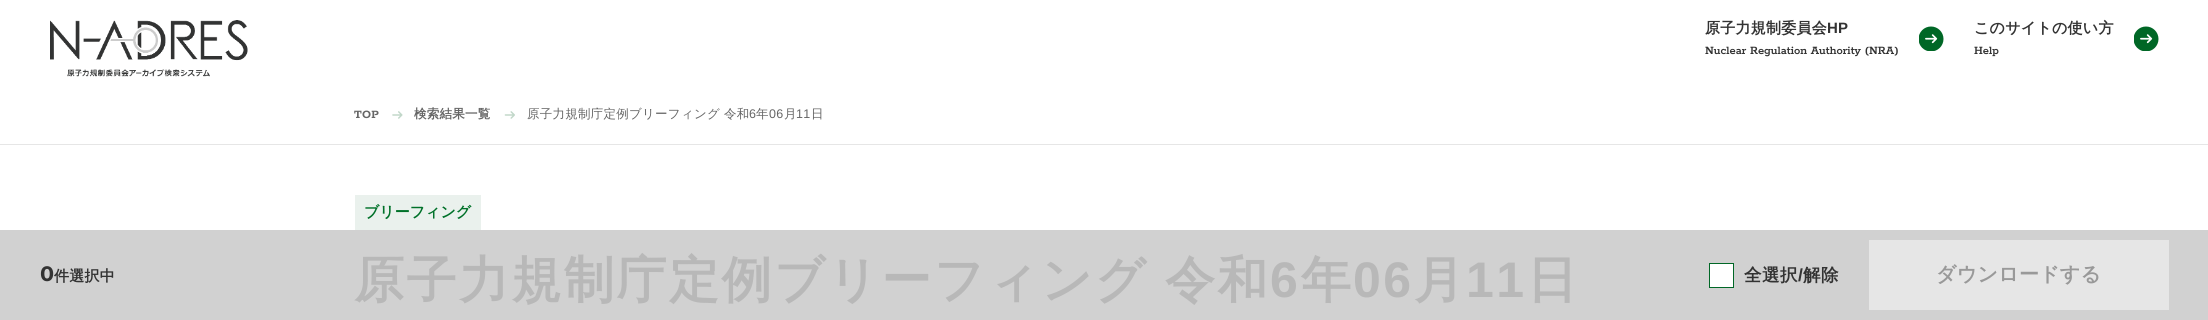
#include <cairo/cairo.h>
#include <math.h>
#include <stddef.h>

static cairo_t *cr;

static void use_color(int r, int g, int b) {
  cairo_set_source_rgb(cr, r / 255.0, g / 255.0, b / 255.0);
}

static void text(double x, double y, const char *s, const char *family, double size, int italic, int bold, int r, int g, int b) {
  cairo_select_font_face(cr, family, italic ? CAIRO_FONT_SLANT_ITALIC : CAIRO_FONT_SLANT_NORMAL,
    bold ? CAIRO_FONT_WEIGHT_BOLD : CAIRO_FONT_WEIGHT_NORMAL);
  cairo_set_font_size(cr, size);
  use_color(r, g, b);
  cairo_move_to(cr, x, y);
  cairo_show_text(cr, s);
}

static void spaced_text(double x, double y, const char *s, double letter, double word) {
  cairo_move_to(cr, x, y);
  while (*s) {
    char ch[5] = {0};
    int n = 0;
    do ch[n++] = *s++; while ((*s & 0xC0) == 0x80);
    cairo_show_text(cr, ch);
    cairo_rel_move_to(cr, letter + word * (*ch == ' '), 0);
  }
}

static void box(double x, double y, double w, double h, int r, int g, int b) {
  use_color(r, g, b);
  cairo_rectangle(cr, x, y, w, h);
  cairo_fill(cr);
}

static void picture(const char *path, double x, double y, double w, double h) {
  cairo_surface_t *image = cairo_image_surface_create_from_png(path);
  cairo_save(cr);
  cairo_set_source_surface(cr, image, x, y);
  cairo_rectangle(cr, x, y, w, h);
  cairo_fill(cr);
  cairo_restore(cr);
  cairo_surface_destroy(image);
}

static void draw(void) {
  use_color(255, 255, 255);
  cairo_paint(cr);
  picture("img_01.png", 50, 20, 198, 57);
  picture("img_02.png", 1919, 26, 25, 25);
  picture("img_02.png", 2134, 26, 25, 25);
  box(0, 144, 2208, 1, 230, 230, 230);
  picture("img_03.png", 392, 111, 11, 8);
  picture("img_04.png", 504, 111, 11, 8);
  box(0, 230, 2208, 90, 209, 209, 209);
  box(355, 195, 126, 35, 234, 241, 237);
  use_color(255, 255, 255);
  cairo_rectangle(cr, 1709.5, 263.5, 24, 24);
  cairo_fill_preserve(cr);
  use_color(0, 103, 38);
  cairo_set_line_width(cr, 1);
  cairo_stroke(cr);
  box(1869, 240, 300, 70, 230, 230, 230);
  cairo_select_font_face(cr, "WenQuanYi Zen Hei", CAIRO_FONT_SLANT_NORMAL, CAIRO_FONT_WEIGHT_BOLD);
  cairo_set_font_size(cr, 15);
  use_color(51, 51, 51);
  spaced_text(1705, 33, "原子力規制委員会", 0.25, 0);
  cairo_select_font_face(cr, "Liberation Sans", CAIRO_FONT_SLANT_NORMAL, CAIRO_FONT_WEIGHT_BOLD);
  spaced_text(1827, 33, "HP", 0.25, 0);
  text(1705, 54, "Nuclear Regulation Authority (NRA)", "Rokkitt SemiBold", 12.5, 0, 0, 51, 51, 51);
  cairo_select_font_face(cr, "WenQuanYi Zen Hei", CAIRO_FONT_SLANT_NORMAL, CAIRO_FONT_WEIGHT_BOLD);
  cairo_set_font_size(cr, 15);
  spaced_text(1974, 33, "このサイトの使い方", 0.25, 0);
  text(1974, 54, "Help", "Rokkitt SemiBold", 12.5, 0, 0, 51, 51, 51);
  cairo_select_font_face(cr, "Rokkitt", CAIRO_FONT_SLANT_NORMAL, CAIRO_FONT_WEIGHT_BOLD);
  use_color(102, 102, 102);
  spaced_text(354, 118, "TOP", 0.25, 0);
  cairo_select_font_face(cr, "WenQuanYi Zen Hei", CAIRO_FONT_SLANT_NORMAL, CAIRO_FONT_WEIGHT_BOLD);
  spaced_text(414, 118, "検索結果一覧", 0.25, 0);
  cairo_select_font_face(cr, "WenQuanYi Zen Hei Medium", CAIRO_FONT_SLANT_NORMAL, CAIRO_FONT_WEIGHT_NORMAL);
  spaced_text(527, 118, "原子力規制庁定例ブリーフィング 令和", 0.25, 0);
  cairo_select_font_face(cr, "Liberation Sans", CAIRO_FONT_SLANT_NORMAL, CAIRO_FONT_WEIGHT_NORMAL);
  spaced_text(749, 118, "6", 0.25, 0);
  cairo_select_font_face(cr, "WenQuanYi Zen Hei Medium", CAIRO_FONT_SLANT_NORMAL, CAIRO_FONT_WEIGHT_NORMAL);
  spaced_text(756, 118, "年", 0.25, 0);
  cairo_select_font_face(cr, "Liberation Sans", CAIRO_FONT_SLANT_NORMAL, CAIRO_FONT_WEIGHT_NORMAL);
  spaced_text(769, 118, "06", 0.25, 0);
  cairo_select_font_face(cr, "WenQuanYi Zen Hei Medium", CAIRO_FONT_SLANT_NORMAL, CAIRO_FONT_WEIGHT_NORMAL);
  spaced_text(784, 118, "月", 0.25, 0);
  cairo_select_font_face(cr, "Liberation Sans", CAIRO_FONT_SLANT_NORMAL, CAIRO_FONT_WEIGHT_NORMAL);
  spaced_text(796, 118, "11", 0.25, 0);
  cairo_select_font_face(cr, "WenQuanYi Zen Hei Medium", CAIRO_FONT_SLANT_NORMAL, CAIRO_FONT_WEIGHT_NORMAL);
  spaced_text(811, 118, "日", 0.25, 0);
  text(364, 217, "ブリーフィング", "WenQuanYi Zen Hei", 15, 0, 1, 0, 113, 41);
  cairo_set_font_size(cr, 50);
  use_color(184, 184, 184);
  spaced_text(354, 297, "原子力規制庁定例ブリーフィング 令和", 2.5, -1);
  cairo_select_font_face(cr, "Liberation Sans", CAIRO_FONT_SLANT_NORMAL, CAIRO_FONT_WEIGHT_BOLD);
  spaced_text(1270, 297, "6", 2.5, 0);
  cairo_select_font_face(cr, "WenQuanYi Zen Hei", CAIRO_FONT_SLANT_NORMAL, CAIRO_FONT_WEIGHT_BOLD);
  spaced_text(1301, 297, "年", 2.5, 0);
  cairo_select_font_face(cr, "Liberation Sans", CAIRO_FONT_SLANT_NORMAL, CAIRO_FONT_WEIGHT_BOLD);
  spaced_text(1353, 297, "06", 2.5, 0);
  cairo_select_font_face(cr, "WenQuanYi Zen Hei", CAIRO_FONT_SLANT_NORMAL, CAIRO_FONT_WEIGHT_BOLD);
  spaced_text(1414, 297, "月", 2.5, 0);
  cairo_select_font_face(cr, "Liberation Sans", CAIRO_FONT_SLANT_NORMAL, CAIRO_FONT_WEIGHT_BOLD);
  spaced_text(1466, 297, "11", 2.5, 0);
  cairo_select_font_face(cr, "WenQuanYi Zen Hei", CAIRO_FONT_SLANT_NORMAL, CAIRO_FONT_WEIGHT_BOLD);
  spaced_text(1527, 297, "日", 2.5, 0);
  cairo_select_font_face(cr, "Rokkitt", CAIRO_FONT_SLANT_NORMAL, CAIRO_FONT_WEIGHT_BOLD);
  cairo_set_font_size(cr, 25);
  use_color(51, 51, 51);
  spaced_text(40, 281, "0", 0.25, 0);
  cairo_select_font_face(cr, "WenQuanYi Zen Hei", CAIRO_FONT_SLANT_NORMAL, CAIRO_FONT_WEIGHT_BOLD);
  cairo_set_font_size(cr, 15);
  spaced_text(54, 281, "件選択中", 0.25, 0);
  cairo_set_font_size(cr, 17.5);
  spaced_text(1744, 281, "全選択", 0.5, 0);
  cairo_select_font_face(cr, "Liberation Sans", CAIRO_FONT_SLANT_NORMAL, CAIRO_FONT_WEIGHT_BOLD);
  spaced_text(1798, 281, "/", 0.5, 0);
  cairo_select_font_face(cr, "WenQuanYi Zen Hei", CAIRO_FONT_SLANT_NORMAL, CAIRO_FONT_WEIGHT_BOLD);
  spaced_text(1803, 281, "解除", 0.5, 0);
  cairo_set_font_size(cr, 20);
  use_color(153, 153, 153);
  spaced_text(1936, 281, "ダウンロードする", 0.25, 0);
}

int main(void) {
  cairo_surface_t *surface = cairo_image_surface_create(CAIRO_FORMAT_RGB24, 2208, 320);
  cr = cairo_create(surface);
  cairo_font_options_t *options = cairo_font_options_create();
  cairo_font_options_set_hint_metrics(options, CAIRO_HINT_METRICS_OFF);
  cairo_font_options_set_hint_style(options, CAIRO_HINT_STYLE_NONE);
  cairo_set_font_options(cr, options);
  cairo_set_miter_limit(cr, 4);
  draw();
  cairo_surface_write_to_png(surface, "out.png");
  cairo_font_options_destroy(options);
  cairo_destroy(cr);
  cairo_surface_destroy(surface);
  return 0;
}
